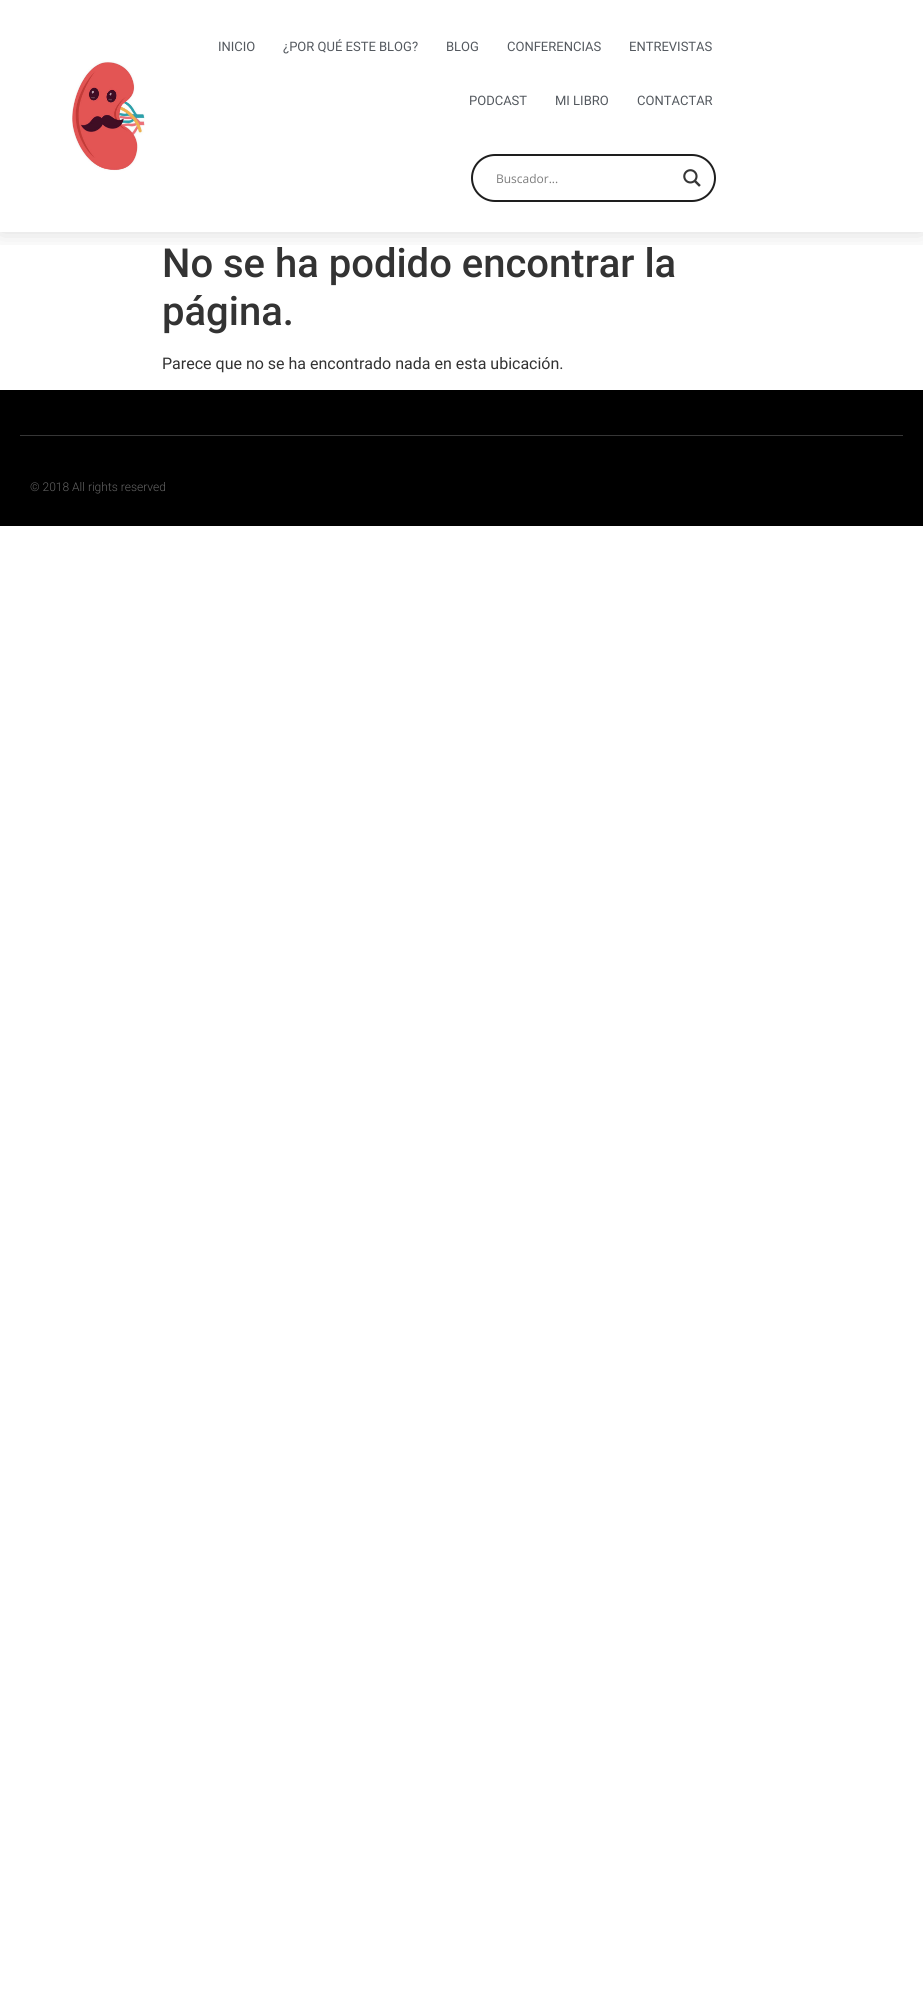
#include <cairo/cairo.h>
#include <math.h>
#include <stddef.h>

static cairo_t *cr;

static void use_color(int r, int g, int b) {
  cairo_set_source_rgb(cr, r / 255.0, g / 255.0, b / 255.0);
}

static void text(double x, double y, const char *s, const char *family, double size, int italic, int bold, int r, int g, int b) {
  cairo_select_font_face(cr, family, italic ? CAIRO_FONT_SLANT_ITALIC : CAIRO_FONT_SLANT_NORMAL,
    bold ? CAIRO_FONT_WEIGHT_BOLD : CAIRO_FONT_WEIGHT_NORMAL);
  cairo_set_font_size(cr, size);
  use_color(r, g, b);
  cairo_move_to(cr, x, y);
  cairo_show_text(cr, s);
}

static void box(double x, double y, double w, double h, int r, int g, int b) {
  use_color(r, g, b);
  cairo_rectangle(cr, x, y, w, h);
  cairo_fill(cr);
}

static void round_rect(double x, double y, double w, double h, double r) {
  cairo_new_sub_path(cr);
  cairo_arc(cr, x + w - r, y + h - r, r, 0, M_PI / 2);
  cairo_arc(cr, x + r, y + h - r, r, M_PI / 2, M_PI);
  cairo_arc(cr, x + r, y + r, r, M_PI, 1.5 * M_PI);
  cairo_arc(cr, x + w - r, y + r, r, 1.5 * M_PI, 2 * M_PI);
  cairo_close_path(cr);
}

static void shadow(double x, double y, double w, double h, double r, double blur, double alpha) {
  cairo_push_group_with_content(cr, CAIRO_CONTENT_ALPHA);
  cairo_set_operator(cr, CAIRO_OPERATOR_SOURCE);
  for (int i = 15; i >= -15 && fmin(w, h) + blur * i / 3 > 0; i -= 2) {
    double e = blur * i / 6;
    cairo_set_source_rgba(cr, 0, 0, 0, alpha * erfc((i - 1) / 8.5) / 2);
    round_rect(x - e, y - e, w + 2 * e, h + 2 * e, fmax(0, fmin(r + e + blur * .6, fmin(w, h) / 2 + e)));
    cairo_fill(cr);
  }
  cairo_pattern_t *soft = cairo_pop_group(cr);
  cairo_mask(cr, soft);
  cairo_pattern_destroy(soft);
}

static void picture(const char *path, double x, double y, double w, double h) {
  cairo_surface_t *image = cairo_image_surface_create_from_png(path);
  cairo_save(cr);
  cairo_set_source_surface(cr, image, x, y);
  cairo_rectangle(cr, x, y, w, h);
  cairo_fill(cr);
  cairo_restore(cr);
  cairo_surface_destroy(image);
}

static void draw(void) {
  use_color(255, 255, 255);
  cairo_paint(cr);
  cairo_save(cr);
  cairo_rectangle(cr, 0, 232, 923, 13);
  cairo_clip(cr);
  use_color(0, 0, 0);
  shadow(0, 0, 923, 232, 0, 12, 0.15);
  cairo_restore(cr);
  picture("img_01.png", 72, 61, 73, 110);
  round_rect(472, 155, 243, 46, 23);
  use_color(30, 30, 30);
  cairo_stroke(cr);
  picture("img_02.png", 683, 169, 18, 18);
  box(0, 390, 923, 136, 0, 0, 0);
  box(20, 435, 883, 1, 54, 54, 54);
  text(218, 51, "INICIO", "Roboto", 13, 0, 0, 84, 89, 95);
  text(283, 51, "¿POR QUÉ ESTE BLOG?", "Roboto", 13, 0, 0, 84, 89, 95);
  text(446, 51, "BLOG", "Roboto", 13, 0, 0, 84, 89, 95);
  text(507, 51, "CONFERENCIAS", "Roboto", 13, 0, 0, 84, 89, 95);
  text(629, 51, "ENTREVISTAS", "Roboto", 13, 0, 0, 84, 89, 95);
  text(469, 105, "PODCAST", "Roboto", 13, 0, 0, 84, 89, 95);
  text(555, 105, "MI LIBRO", "Roboto", 13, 0, 0, 84, 89, 95);
  text(637, 105, "CONTACTAR", "Roboto", 13, 0, 0, 84, 89, 95);
  text(496, 183, "Buscador...", "Open Sans", 12, 0, 0, 125, 125, 125);
  text(162, 277, "No se ha podido encontrar la", "Roboto Medium", 40, 0, 0, 51, 51, 51);
  text(162, 325, "página.", "Roboto Medium", 40, 0, 0, 51, 51, 51);
  text(162, 369, "Parece que no se ha encontrado nada en esta ubicación.", "Roboto", 16, 0, 0, 51, 51, 51);
  text(30, 491, "© 2018 All rights reserved", "Roboto Light", 12, 0, 0, 99, 99, 99);
}

int main(void) {
  cairo_surface_t *surface = cairo_image_surface_create(CAIRO_FORMAT_RGB24, 923, 2011);
  cr = cairo_create(surface);
  cairo_font_options_t *options = cairo_font_options_create();
  cairo_font_options_set_hint_metrics(options, CAIRO_HINT_METRICS_OFF);
  cairo_font_options_set_hint_style(options, CAIRO_HINT_STYLE_NONE);
  cairo_set_font_options(cr, options);
  cairo_set_miter_limit(cr, 4);
  draw();
  cairo_surface_write_to_png(surface, "out.png");
  cairo_font_options_destroy(options);
  cairo_destroy(cr);
  cairo_surface_destroy(surface);
  return 0;
}
